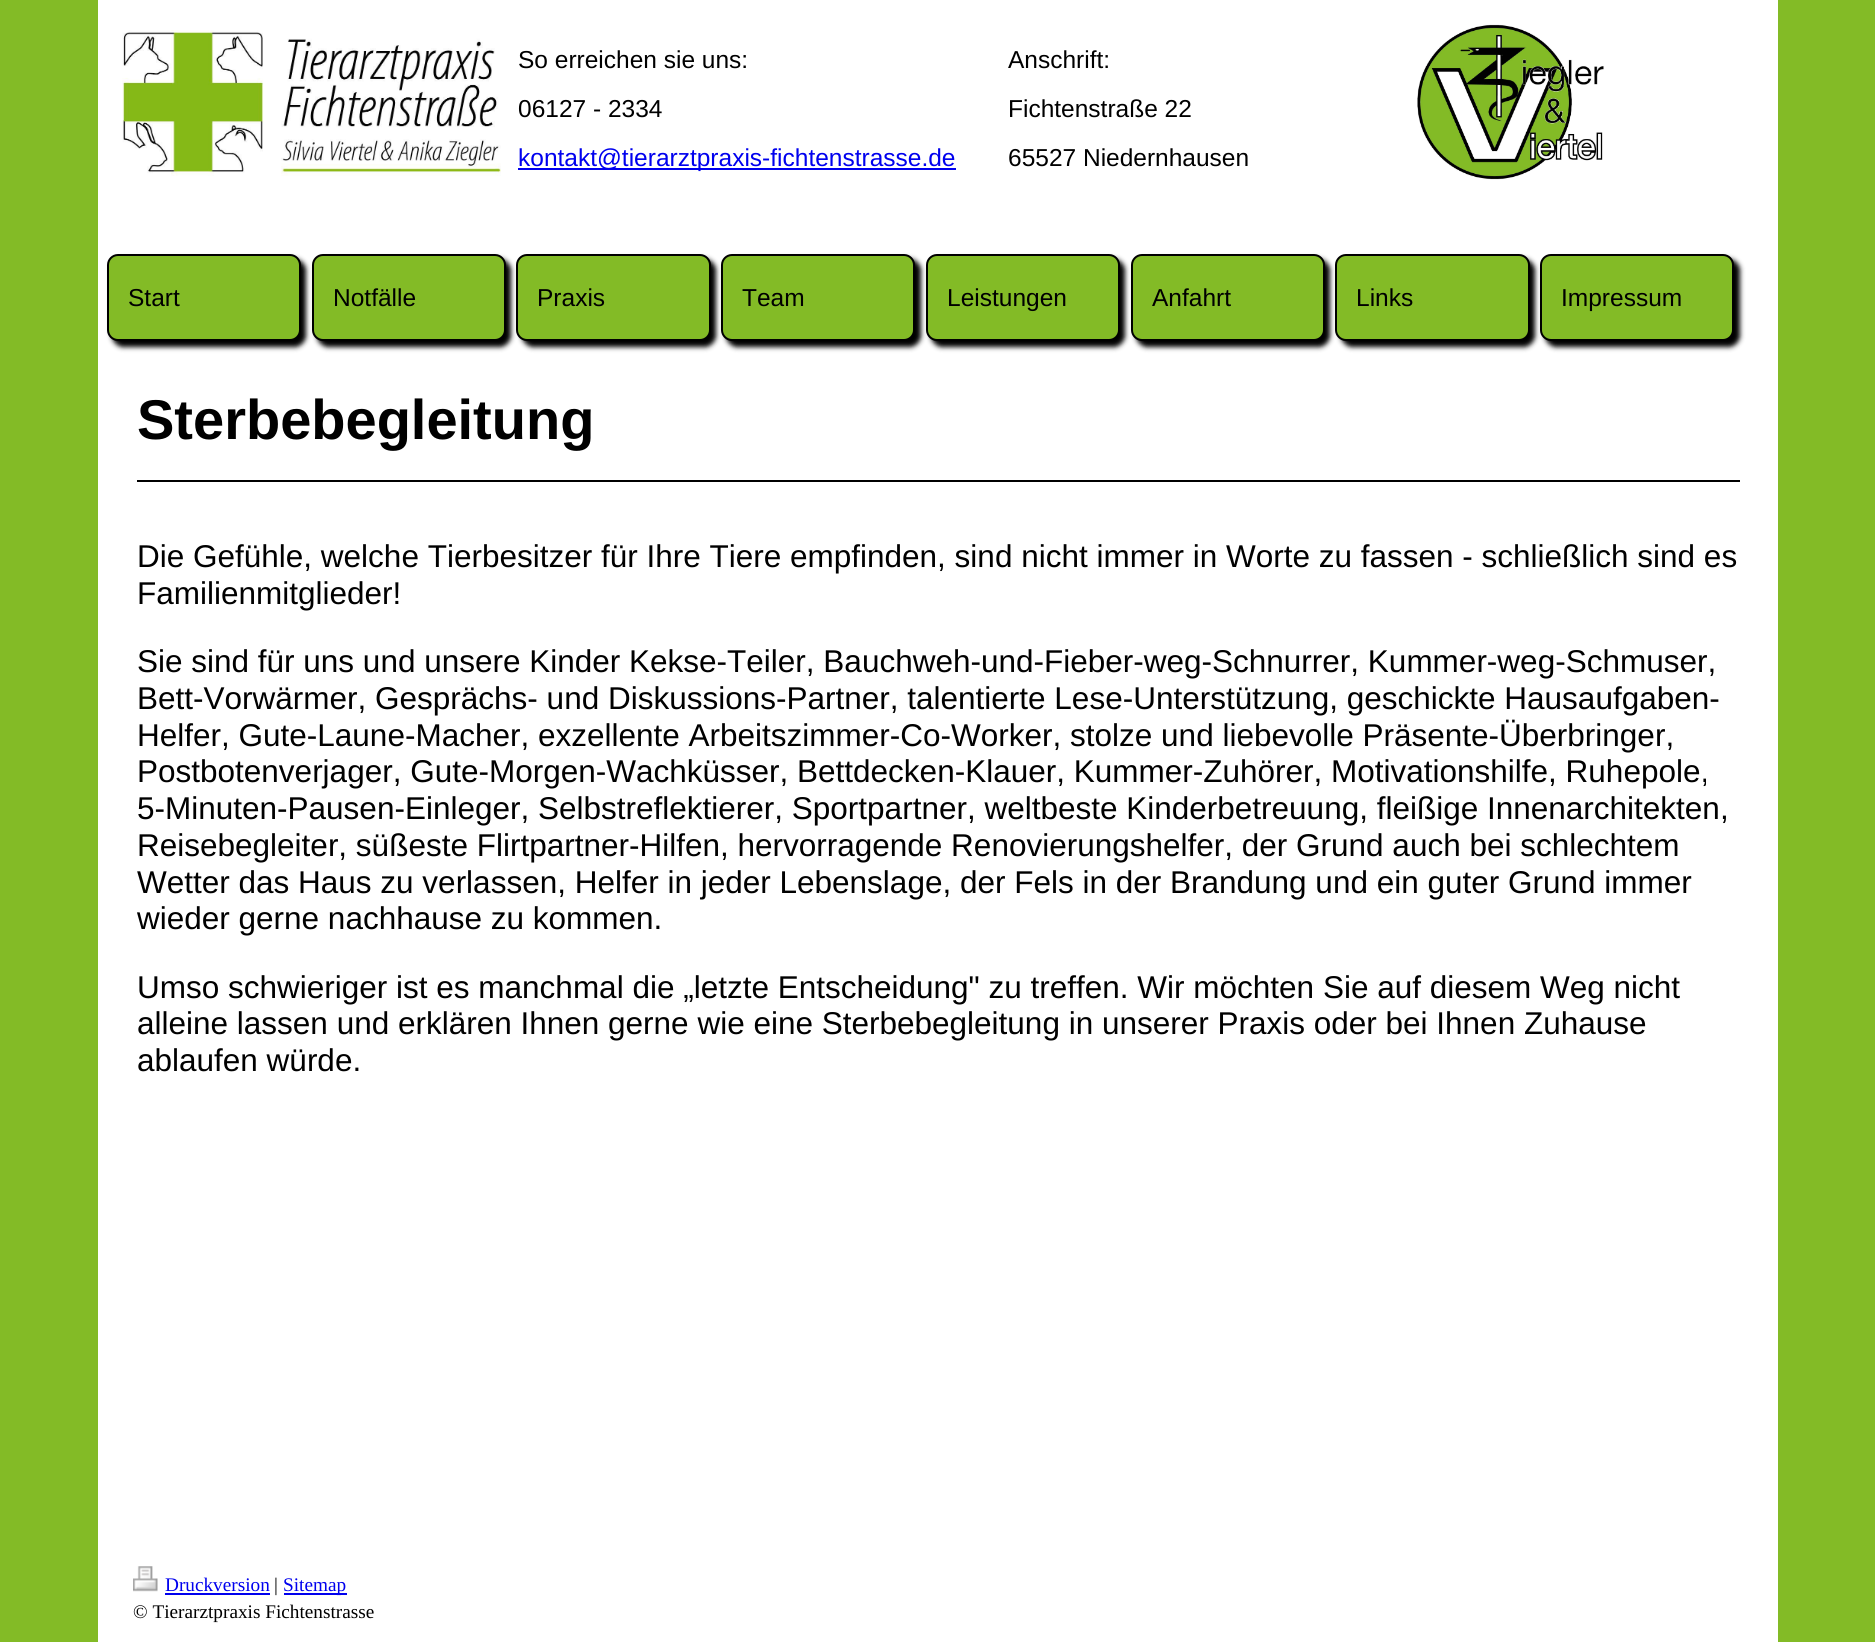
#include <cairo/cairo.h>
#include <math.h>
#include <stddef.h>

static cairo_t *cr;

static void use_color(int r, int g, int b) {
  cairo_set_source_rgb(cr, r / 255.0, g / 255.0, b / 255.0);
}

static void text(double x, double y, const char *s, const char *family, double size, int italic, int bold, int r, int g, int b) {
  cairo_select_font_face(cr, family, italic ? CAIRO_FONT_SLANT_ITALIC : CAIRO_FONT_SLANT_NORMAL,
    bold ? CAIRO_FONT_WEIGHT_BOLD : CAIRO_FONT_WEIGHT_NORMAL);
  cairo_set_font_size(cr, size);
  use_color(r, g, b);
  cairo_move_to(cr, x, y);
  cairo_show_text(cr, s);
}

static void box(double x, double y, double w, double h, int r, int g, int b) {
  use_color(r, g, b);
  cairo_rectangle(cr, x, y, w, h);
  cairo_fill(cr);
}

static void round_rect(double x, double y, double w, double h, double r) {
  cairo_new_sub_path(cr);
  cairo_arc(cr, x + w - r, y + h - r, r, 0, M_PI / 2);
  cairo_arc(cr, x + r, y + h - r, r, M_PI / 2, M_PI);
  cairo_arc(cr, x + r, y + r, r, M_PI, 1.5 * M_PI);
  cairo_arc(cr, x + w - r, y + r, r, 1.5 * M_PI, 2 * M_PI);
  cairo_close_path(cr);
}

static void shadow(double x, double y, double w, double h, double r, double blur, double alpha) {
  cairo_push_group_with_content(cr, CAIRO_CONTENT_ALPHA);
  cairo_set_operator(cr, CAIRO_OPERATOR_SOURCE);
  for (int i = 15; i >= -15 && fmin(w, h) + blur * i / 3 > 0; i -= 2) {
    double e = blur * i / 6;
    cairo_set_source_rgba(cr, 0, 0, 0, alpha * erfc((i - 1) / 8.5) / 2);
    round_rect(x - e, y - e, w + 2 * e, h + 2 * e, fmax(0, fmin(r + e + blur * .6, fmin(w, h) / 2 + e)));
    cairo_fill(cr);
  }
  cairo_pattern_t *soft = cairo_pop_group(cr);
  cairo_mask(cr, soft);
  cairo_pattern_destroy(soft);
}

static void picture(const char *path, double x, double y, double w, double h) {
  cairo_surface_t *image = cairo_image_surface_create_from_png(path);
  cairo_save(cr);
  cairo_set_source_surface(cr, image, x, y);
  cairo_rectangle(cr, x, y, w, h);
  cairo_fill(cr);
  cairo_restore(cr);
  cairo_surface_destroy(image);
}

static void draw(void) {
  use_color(131, 187, 38);
  cairo_paint(cr);
  box(98, 0, 1680, 1642, 255, 255, 255);
  picture("img_01.png", 122, 30, 379, 146);
  box(518, 168, 438, 2, 0, 0, 238);
  picture("img_02.png", 1417, 24, 187, 156);
  use_color(0, 0, 0);
  shadow(112, 259, 194, 88, 11, 2.5, 1);
  use_color(131, 187, 38);
  round_rect(108, 255, 192, 85, 10);
  cairo_fill_preserve(cr);
  use_color(0, 0, 0);
  cairo_stroke(cr);
  use_color(0, 0, 0);
  shadow(317, 259, 194, 88, 11, 2.5, 1);
  use_color(131, 187, 38);
  round_rect(313, 255, 192, 85, 10);
  cairo_fill_preserve(cr);
  use_color(0, 0, 0);
  cairo_stroke(cr);
  use_color(0, 0, 0);
  shadow(522, 259, 194, 88, 11, 2.5, 1);
  use_color(131, 187, 38);
  round_rect(517, 255, 193, 85, 10);
  cairo_fill_preserve(cr);
  use_color(0, 0, 0);
  cairo_stroke(cr);
  use_color(0, 0, 0);
  shadow(726, 259, 195, 88, 11, 2.5, 1);
  use_color(131, 187, 38);
  round_rect(722, 255, 192, 85, 10);
  cairo_fill_preserve(cr);
  use_color(0, 0, 0);
  cairo_stroke(cr);
  use_color(0, 0, 0);
  shadow(931, 259, 194, 88, 11, 2.5, 1);
  use_color(131, 187, 38);
  round_rect(927, 255, 192, 85, 10);
  cairo_fill_preserve(cr);
  use_color(0, 0, 0);
  cairo_stroke(cr);
  use_color(0, 0, 0);
  shadow(1136, 259, 194, 88, 11, 2.5, 1);
  use_color(131, 187, 38);
  round_rect(1132, 255, 192, 85, 10);
  cairo_fill_preserve(cr);
  use_color(0, 0, 0);
  cairo_stroke(cr);
  use_color(0, 0, 0);
  shadow(1341, 259, 194, 88, 11, 2.5, 1);
  use_color(131, 187, 38);
  round_rect(1336, 255, 193, 85, 10);
  cairo_fill_preserve(cr);
  use_color(0, 0, 0);
  cairo_stroke(cr);
  use_color(0, 0, 0);
  shadow(1545, 259, 195, 88, 11, 2.5, 1);
  use_color(131, 187, 38);
  round_rect(1541, 255, 192, 85, 10);
  cairo_fill_preserve(cr);
  use_color(0, 0, 0);
  cairo_stroke(cr);
  box(137, 480, 1603, 2, 0, 0, 0);
  picture("img_03.png", 133, 1566, 25, 26);
  box(165, 1593, 105, 2, 0, 0, 238);
  box(284, 1593, 63, 2, 0, 0, 238);
  text(518, 68, "So erreichen sie uns:", "Liberation Sans", 24.5, 0, 0, 0, 0, 0);
  text(518, 117, "06127 - 2334", "Liberation Sans", 24.5, 0, 0, 0, 0, 0);
  text(518, 166, "kontakt@tierarztpraxis-fichtenstrasse.de", "Liberation Sans", 24.5, 0, 0, 0, 0, 238);
  text(1008, 68, "Anschrift:", "Liberation Sans", 24.5, 0, 0, 0, 0, 0);
  text(1008, 117, "Fichtenstraße 22", "Liberation Sans", 24.5, 0, 0, 0, 0, 0);
  text(1008, 166, "65527 Niedernhausen", "Liberation Sans", 24.5, 0, 0, 0, 0, 0);
  text(128, 306, "Start", "Liberation Sans", 24.5, 0, 0, 0, 0, 0);
  text(333, 306, "Notfälle", "Liberation Sans", 24.5, 0, 0, 0, 0, 0);
  text(537, 306, "Praxis", "Liberation Sans", 24.5, 0, 0, 0, 0, 0);
  text(742, 306, "Team", "Liberation Sans", 24.5, 0, 0, 0, 0, 0);
  text(947, 306, "Leistungen", "Liberation Sans", 24.5, 0, 0, 0, 0, 0);
  text(1152, 306, "Anfahrt", "Liberation Sans", 24.5, 0, 0, 0, 0, 0);
  text(1356, 306, "Links", "Liberation Sans", 24.5, 0, 0, 0, 0, 0);
  text(1561, 306, "Impressum", "Liberation Sans", 24.5, 0, 0, 0, 0, 0);
  text(137, 439, "Sterbebegleitung", "Liberation Sans", 56, 0, 1, 0, 0, 0);
  text(137, 567, "Die Gefühle, welche Tierbesitzer für Ihre Tiere empfinden, sind nicht immer in Worte zu fassen - schließlich sind es", "Liberation Sans", 31.5, 0, 0, 0, 0, 0);
  text(137, 604, "Familienmitglieder!", "Liberation Sans", 31.5, 0, 0, 0, 0, 0);
  text(137, 672, "Sie sind für uns und unsere Kinder Kekse-Teiler, Bauchweh-und-Fieber-weg-Schnurrer, Kummer-weg-Schmuser,", "Liberation Sans", 31.5, 0, 0, 0, 0, 0);
  text(137, 709, "Bett-Vorwärmer, Gesprächs- und Diskussions-Partner, talentierte Lese-Unterstützung, geschickte Hausaufgaben-", "Liberation Sans", 31.5, 0, 0, 0, 0, 0);
  text(137, 746, "Helfer, Gute-Laune-Macher, exzellente Arbeitszimmer-Co-Worker, stolze und liebevolle Präsente-Überbringer,", "Liberation Sans", 31.5, 0, 0, 0, 0, 0);
  text(137, 782, "Postbotenverjager, Gute-Morgen-Wachküsser, Bettdecken-Klauer, Kummer-Zuhörer, Motivationshilfe, Ruhepole,", "Liberation Sans", 31.5, 0, 0, 0, 0, 0);
  text(137, 819, "5-Minuten-Pausen-Einleger, Selbstreflektierer, Sportpartner, weltbeste Kinderbetreuung, fleißige Innenarchitekten,", "Liberation Sans", 31.5, 0, 0, 0, 0, 0);
  text(137, 856, "Reisebegleiter, süßeste Flirtpartner-Hilfen, hervorragende Renovierungshelfer, der Grund auch bei schlechtem", "Liberation Sans", 31.5, 0, 0, 0, 0, 0);
  text(137, 893, "Wetter das Haus zu verlassen, Helfer in jeder Lebenslage, der Fels in der Brandung und ein guter Grund immer", "Liberation Sans", 31.5, 0, 0, 0, 0, 0);
  text(137, 929, "wieder gerne nachhause zu kommen.", "Liberation Sans", 31.5, 0, 0, 0, 0, 0);
  text(137, 998, "Umso schwieriger ist es manchmal die „letzte Entscheidung\" zu treffen. Wir möchten Sie auf diesem Weg nicht", "Liberation Sans", 31.5, 0, 0, 0, 0, 0);
  text(137, 1034, "alleine lassen und erklären Ihnen gerne wie eine Sterbebegleitung in unserer Praxis oder bei Ihnen Zuhause", "Liberation Sans", 31.5, 0, 0, 0, 0, 0);
  text(137, 1071, "ablaufen würde.", "Liberation Sans", 31.5, 0, 0, 0, 0, 0);
  text(165, 1591, "Druckversion", "Liberation Serif", 19.25, 0, 0, 0, 0, 238);
  text(274, 1591, "|", "Liberation Serif", 19.25, 0, 0, 0, 0, 0);
  text(283, 1591, "Sitemap", "Liberation Serif", 19.25, 0, 0, 0, 0, 238);
  text(133, 1618, "© Tierarztpraxis Fichtenstrasse", "Liberation Serif", 19.25, 0, 0, 0, 0, 0);
}

int main(void) {
  cairo_surface_t *surface = cairo_image_surface_create(CAIRO_FORMAT_RGB24, 1875, 1642);
  cr = cairo_create(surface);
  cairo_font_options_t *options = cairo_font_options_create();
  cairo_font_options_set_hint_metrics(options, CAIRO_HINT_METRICS_OFF);
  cairo_font_options_set_hint_style(options, CAIRO_HINT_STYLE_NONE);
  cairo_set_font_options(cr, options);
  cairo_set_miter_limit(cr, 4);
  draw();
  cairo_surface_write_to_png(surface, "out.png");
  cairo_font_options_destroy(options);
  cairo_destroy(cr);
  cairo_surface_destroy(surface);
  return 0;
}
